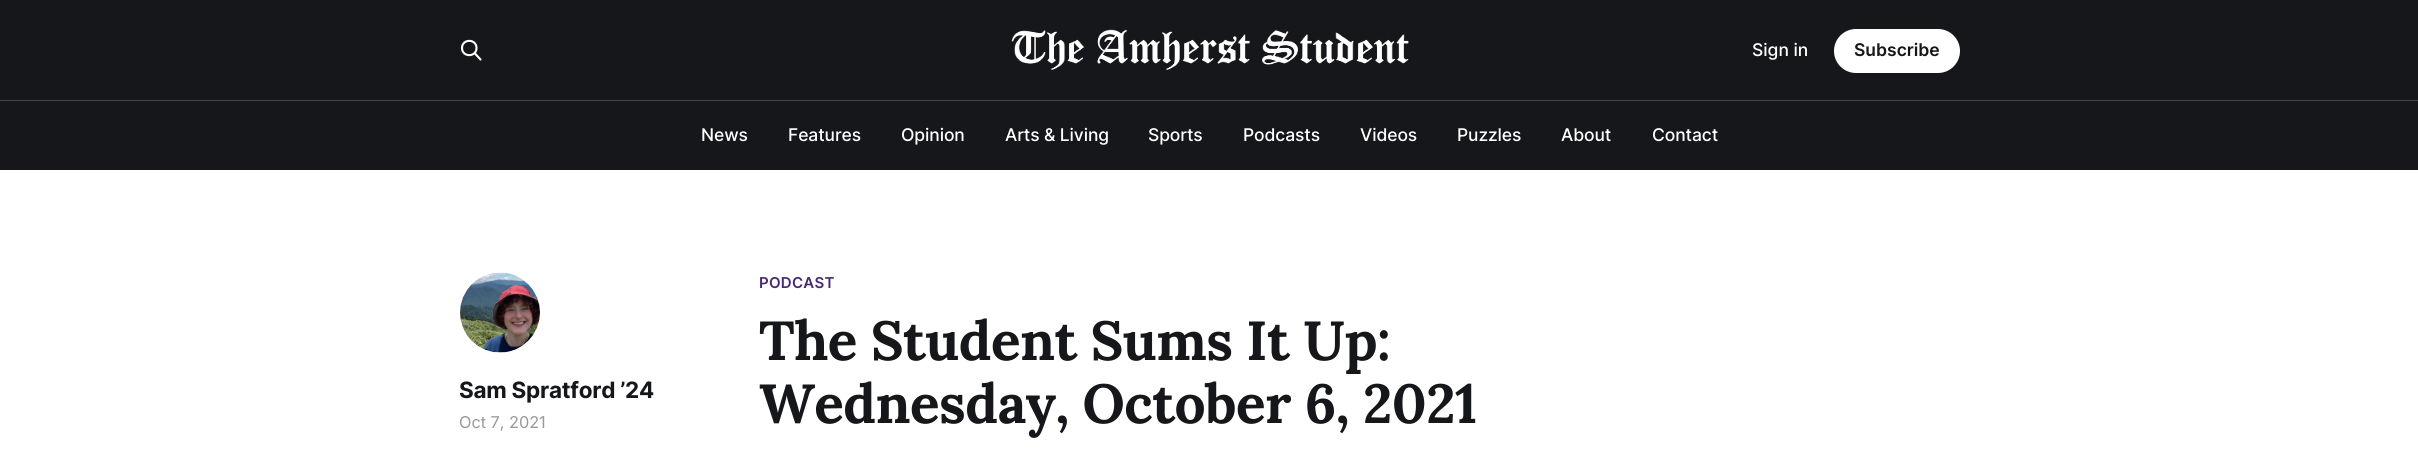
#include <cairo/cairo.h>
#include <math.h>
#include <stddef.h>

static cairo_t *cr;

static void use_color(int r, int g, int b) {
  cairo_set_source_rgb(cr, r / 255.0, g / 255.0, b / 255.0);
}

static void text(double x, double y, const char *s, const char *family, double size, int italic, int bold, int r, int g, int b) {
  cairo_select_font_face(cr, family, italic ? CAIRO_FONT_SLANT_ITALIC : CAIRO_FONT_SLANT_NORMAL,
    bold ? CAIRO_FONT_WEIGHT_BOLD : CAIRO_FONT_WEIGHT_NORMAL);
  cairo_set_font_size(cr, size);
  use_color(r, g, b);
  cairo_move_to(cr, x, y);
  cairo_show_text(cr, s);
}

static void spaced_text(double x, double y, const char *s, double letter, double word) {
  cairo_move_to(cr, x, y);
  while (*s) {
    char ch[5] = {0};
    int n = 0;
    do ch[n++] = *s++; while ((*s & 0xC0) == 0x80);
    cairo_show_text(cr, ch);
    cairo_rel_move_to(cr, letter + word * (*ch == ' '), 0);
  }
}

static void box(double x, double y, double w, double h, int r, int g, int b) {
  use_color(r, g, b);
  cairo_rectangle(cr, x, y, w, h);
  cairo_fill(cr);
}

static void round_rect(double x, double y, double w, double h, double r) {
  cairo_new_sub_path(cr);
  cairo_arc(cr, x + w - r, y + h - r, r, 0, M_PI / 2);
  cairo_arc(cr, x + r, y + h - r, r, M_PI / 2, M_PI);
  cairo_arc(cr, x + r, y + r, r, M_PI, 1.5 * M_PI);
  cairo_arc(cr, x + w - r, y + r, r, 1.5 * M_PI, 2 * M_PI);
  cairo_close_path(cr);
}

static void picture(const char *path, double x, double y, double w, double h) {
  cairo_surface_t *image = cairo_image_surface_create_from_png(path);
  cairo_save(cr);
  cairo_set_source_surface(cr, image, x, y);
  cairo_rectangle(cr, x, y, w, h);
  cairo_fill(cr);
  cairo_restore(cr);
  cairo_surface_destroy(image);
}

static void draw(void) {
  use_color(255, 255, 255);
  cairo_paint(cr);
  box(0, 0, 2418, 170, 21, 23, 26);
  picture("img_01.png", 1011, 29, 398, 41);
  picture("img_02.png", 1011, 29, 398, 41);
  cairo_new_path(cr);
  cairo_move_to(cr, 480.5, 59.5);
  cairo_line_to(cr, 474.5, 53);
  cairo_move_to(cr, 476.5, 48);
  cairo_curve_to(cr, 476.5, 57.5, 462, 57.5, 462, 48);
  cairo_curve_to(cr, 462, 38.5, 476.5, 38.5, 476.5, 48);
  cairo_close_path(cr);
  use_color(255, 255, 255);
  cairo_set_line_width(cr, 2.1);
  cairo_set_line_cap(cr, CAIRO_LINE_CAP_ROUND);
  cairo_set_line_join(cr, CAIRO_LINE_JOIN_ROUND);
  cairo_stroke(cr);
  round_rect(1834, 29, 126, 44, 22);
  cairo_fill(cr);
  box(0, 100, 2418, 1, 68, 69, 72);
  picture("img_03.png", 460, 272, 80, 81);
  text(1752, 56, "Sign in", "Inter Medium", 17.5, 0, 0, 255, 255, 255);
  text(1854, 56, "Subscribe", "Inter SemiBold", 17.5, 0, 0, 21, 23, 26);
  cairo_select_font_face(cr, "Inter Medium", CAIRO_FONT_SLANT_NORMAL, CAIRO_FONT_WEIGHT_NORMAL);
  use_color(255, 255, 255);
  spaced_text(701, 141, "News", -0.1, 0);
  spaced_text(788, 141, "Features", -0.1, 0);
  spaced_text(901, 141, "Opinion", -0.1, 0);
  spaced_text(1005, 141, "Arts & Living", -0.1, 0);
  spaced_text(1148, 141, "Sports", -0.1, 0);
  spaced_text(1243, 141, "Podcasts", -0.1, 0);
  spaced_text(1360, 141, "Videos", -0.1, 0);
  spaced_text(1457, 141, "Puzzles", -0.1, 0);
  spaced_text(1561, 141, "About", -0.1, 0);
  spaced_text(1652, 141, "Contact", -0.1, 0);
  cairo_select_font_face(cr, "Inter SemiBold", CAIRO_FONT_SLANT_NORMAL, CAIRO_FONT_WEIGHT_NORMAL);
  cairo_set_font_size(cr, 15);
  use_color(73, 42, 113);
  spaced_text(759, 288, "PODCAST", 0.25, 0);
  cairo_select_font_face(cr, "Inter", CAIRO_FONT_SLANT_NORMAL, CAIRO_FONT_WEIGHT_BOLD);
  cairo_set_font_size(cr, 22.5);
  use_color(21, 23, 26);
  spaced_text(459, 398, "Sam Spratford ’24", -0.25, 0);
  text(459, 428, "Oct 7, 2021", "Inter", 16.25, 0, 0, 153, 153, 153);
  cairo_select_font_face(cr, "Lora", CAIRO_FONT_SLANT_NORMAL, CAIRO_FONT_WEIGHT_BOLD);
  cairo_set_font_size(cr, 55);
  use_color(21, 23, 26);
  spaced_text(759, 360, "The Student Sums It Up:", -0.55, 0);
  spaced_text(759, 423, "Wednesday, October 6, 2021", -0.55, 0);
}

int main(void) {
  cairo_surface_t *surface = cairo_image_surface_create(CAIRO_FORMAT_RGB24, 2418, 449);
  cr = cairo_create(surface);
  cairo_font_options_t *options = cairo_font_options_create();
  cairo_font_options_set_hint_metrics(options, CAIRO_HINT_METRICS_OFF);
  cairo_font_options_set_hint_style(options, CAIRO_HINT_STYLE_NONE);
  cairo_set_font_options(cr, options);
  cairo_set_miter_limit(cr, 4);
  draw();
  cairo_surface_write_to_png(surface, "out.png");
  cairo_font_options_destroy(options);
  cairo_destroy(cr);
  cairo_surface_destroy(surface);
  return 0;
}
